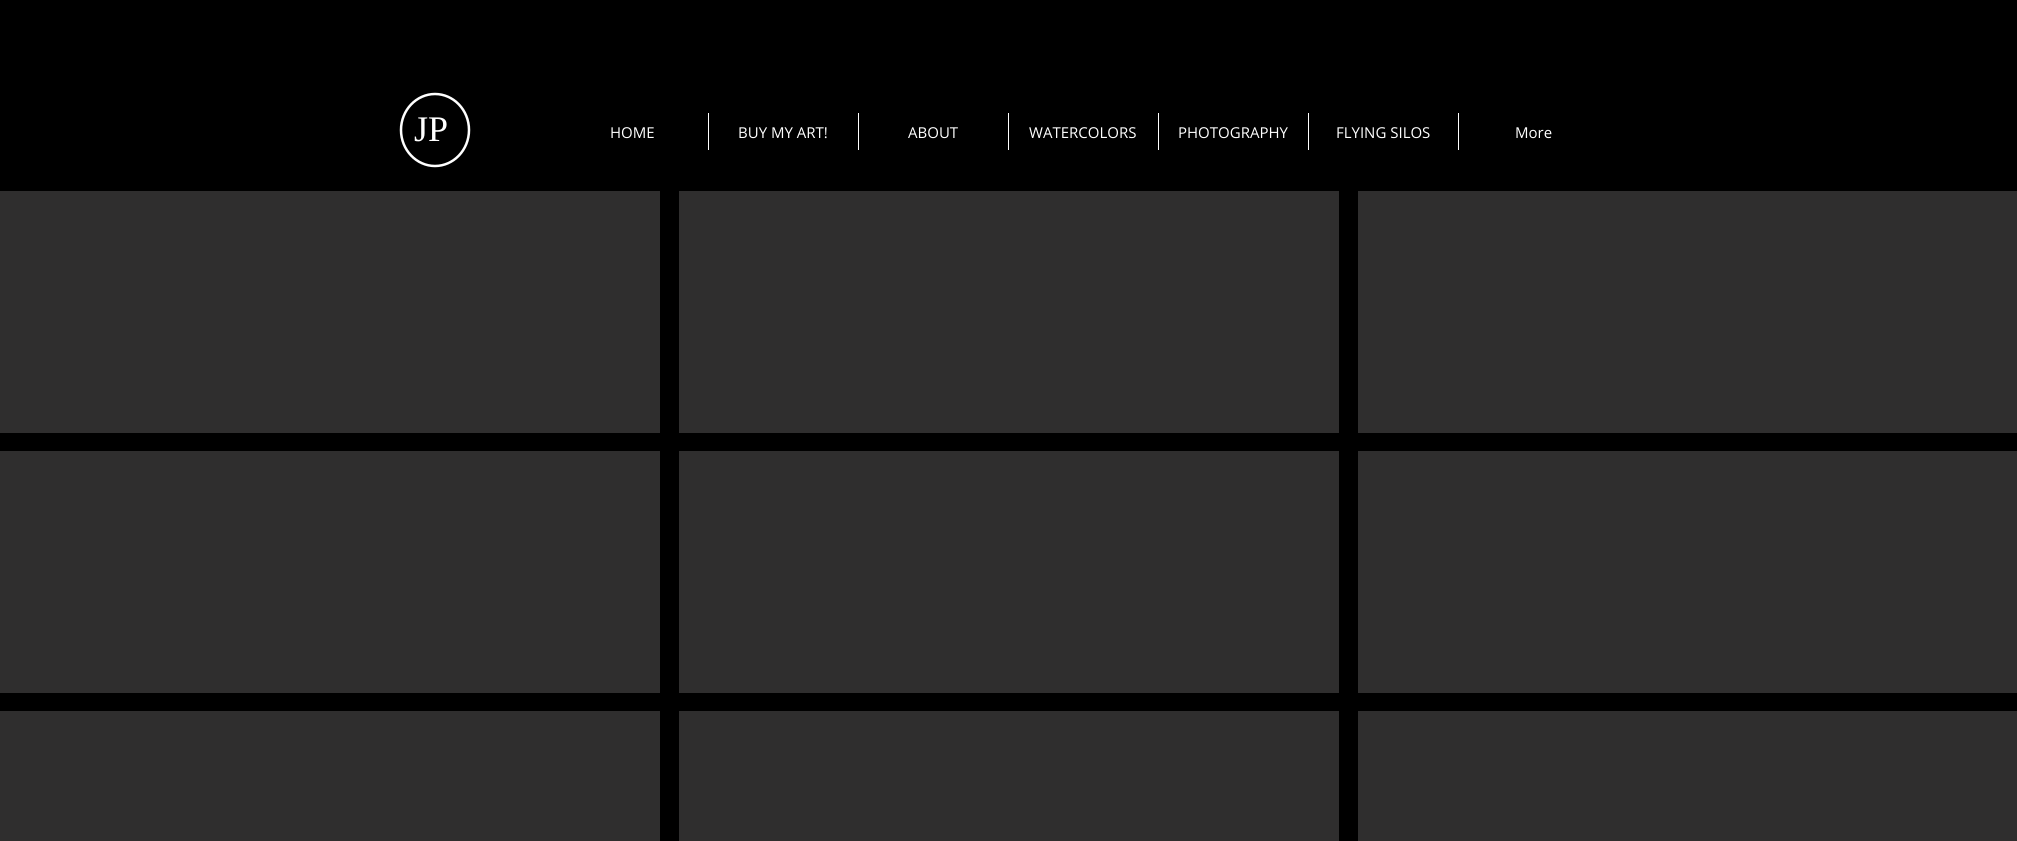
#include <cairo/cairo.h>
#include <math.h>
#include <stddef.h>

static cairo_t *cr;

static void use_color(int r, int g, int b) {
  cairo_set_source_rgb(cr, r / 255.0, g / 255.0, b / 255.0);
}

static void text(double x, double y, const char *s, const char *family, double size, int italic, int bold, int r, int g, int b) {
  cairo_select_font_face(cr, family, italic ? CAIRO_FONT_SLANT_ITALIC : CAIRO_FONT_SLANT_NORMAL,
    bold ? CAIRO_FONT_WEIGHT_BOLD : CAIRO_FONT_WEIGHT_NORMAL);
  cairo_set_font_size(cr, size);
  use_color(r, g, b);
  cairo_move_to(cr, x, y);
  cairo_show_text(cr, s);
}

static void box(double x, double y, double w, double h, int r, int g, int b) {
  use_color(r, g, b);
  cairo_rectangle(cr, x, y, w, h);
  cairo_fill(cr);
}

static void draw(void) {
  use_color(0, 0, 0);
  cairo_paint(cr);
  cairo_new_path(cr);
  cairo_move_to(cr, 435, 94);
  cairo_curve_to(cr, 453.5, 94, 469, 110, 469, 130);
  cairo_curve_to(cr, 469, 150, 453.5, 166, 435, 166);
  cairo_curve_to(cr, 416.5, 166, 401, 150, 401, 130);
  cairo_curve_to(cr, 401, 110, 416.5, 94, 435, 94);
  cairo_close_path(cr);
  use_color(255, 255, 255);
  cairo_set_line_width(cr, 2.5);
  cairo_stroke(cr);
  box(708, 113, 1, 37, 255, 255, 255);
  box(858, 113, 1, 37, 255, 255, 255);
  box(1008, 113, 1, 37, 255, 255, 255);
  box(1158, 113, 1, 37, 255, 255, 255);
  box(1308, 113, 1, 37, 255, 255, 255);
  box(1458, 113, 1, 37, 255, 255, 255);
  box(0, 191, 660, 242, 47, 46, 46);
  box(679, 191, 660, 242, 47, 46, 46);
  box(1358, 191, 659, 242, 47, 46, 46);
  box(0, 451, 660, 242, 47, 46, 46);
  box(679, 451, 660, 242, 47, 46, 46);
  box(1358, 451, 659, 242, 47, 46, 46);
  box(0, 711, 660, 130, 47, 46, 46);
  box(679, 711, 660, 130, 47, 46, 46);
  box(1358, 711, 659, 130, 47, 46, 46);
  text(414, 141, "JP", "Liberation Serif", 36, 0, 0, 255, 255, 255);
  text(610, 138, "HOME", "Open Sans", 15, 0, 0, 255, 255, 255);
  text(738, 138, "BUY MY ART!", "Open Sans", 15, 0, 0, 255, 255, 255);
  text(908, 138, "ABOUT", "Open Sans", 15, 0, 0, 255, 255, 255);
  text(1029, 138, "WATERCOLORS", "Open Sans", 15, 0, 0, 255, 255, 255);
  text(1178, 138, "PHOTOGRAPHY", "Open Sans", 15, 0, 0, 255, 255, 255);
  text(1336, 138, "FLYING SILOS", "Open Sans", 15, 0, 0, 255, 255, 255);
  text(1515, 138, "More", "Open Sans", 15, 0, 0, 255, 255, 255);
}

int main(void) {
  cairo_surface_t *surface = cairo_image_surface_create(CAIRO_FORMAT_RGB24, 2017, 841);
  cr = cairo_create(surface);
  cairo_font_options_t *options = cairo_font_options_create();
  cairo_font_options_set_hint_metrics(options, CAIRO_HINT_METRICS_OFF);
  cairo_font_options_set_hint_style(options, CAIRO_HINT_STYLE_NONE);
  cairo_set_font_options(cr, options);
  cairo_set_miter_limit(cr, 4);
  draw();
  cairo_surface_write_to_png(surface, "out.png");
  cairo_font_options_destroy(options);
  cairo_destroy(cr);
  cairo_surface_destroy(surface);
  return 0;
}
